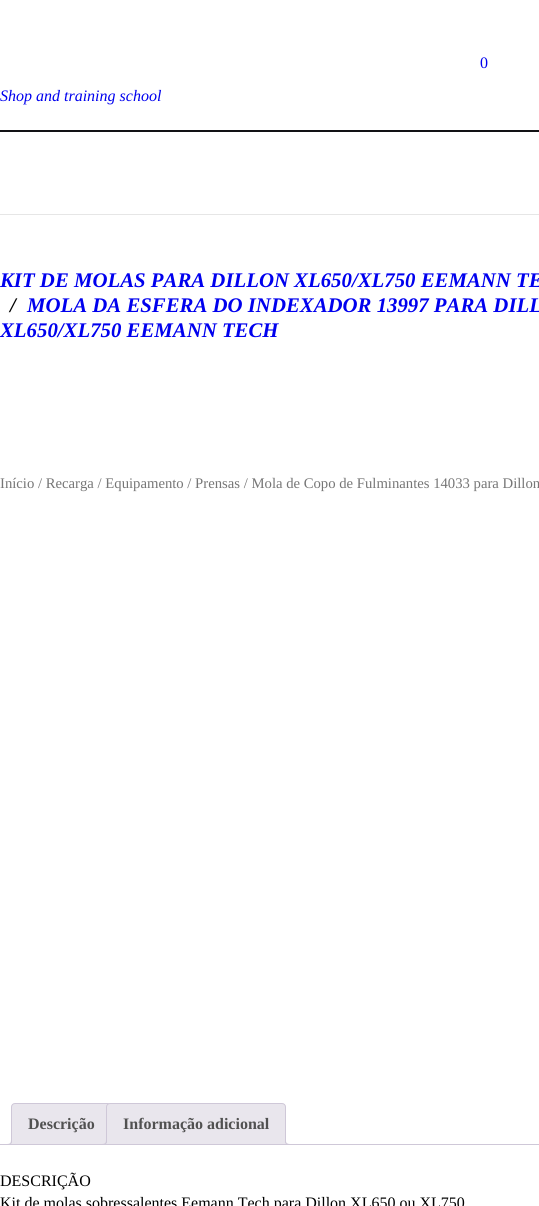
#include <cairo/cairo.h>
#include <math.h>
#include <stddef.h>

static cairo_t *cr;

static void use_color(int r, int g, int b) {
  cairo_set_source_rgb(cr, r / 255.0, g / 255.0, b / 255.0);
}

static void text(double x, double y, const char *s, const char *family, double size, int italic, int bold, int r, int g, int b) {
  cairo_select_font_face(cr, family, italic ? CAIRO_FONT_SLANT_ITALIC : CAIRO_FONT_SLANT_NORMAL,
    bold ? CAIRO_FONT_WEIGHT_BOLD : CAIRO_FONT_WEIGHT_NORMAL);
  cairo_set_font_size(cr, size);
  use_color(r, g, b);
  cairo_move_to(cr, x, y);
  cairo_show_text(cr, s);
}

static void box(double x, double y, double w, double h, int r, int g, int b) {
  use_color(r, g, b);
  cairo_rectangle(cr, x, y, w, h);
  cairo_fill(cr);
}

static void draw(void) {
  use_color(255, 255, 255);
  cairo_paint(cr);
  box(0, 130, 539, 2, 18, 18, 21);
  box(0, 214, 539, 1, 230, 230, 230);
  use_color(233, 230, 237);
  cairo_new_path(cr);
  cairo_move_to(cr, 15, 1103.5);
  cairo_line_to(cr, 108, 1103.5);
  cairo_curve_to(cr, 110, 1103.5, 111.5, 1105, 111.5, 1107);
  cairo_line_to(cr, 111.5, 1144.5);
  cairo_line_to(cr, 11.5, 1144.5);
  cairo_line_to(cr, 11.5, 1107);
  cairo_curve_to(cr, 11.5, 1105, 13, 1103.5, 15, 1103.5);
  cairo_close_path(cr);
  cairo_fill_preserve(cr);
  use_color(207, 200, 216);
  cairo_set_line_width(cr, 1);
  cairo_stroke(cr);
  cairo_save(cr);
  cairo_rectangle(cr, 0, 1103, 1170, 42);
  cairo_clip(cr);
  use_color(233, 230, 237);
  cairo_new_path(cr);
  cairo_move_to(cr, 9, 1145);
  cairo_line_to(cr, 9, 1147);
  cairo_curve_to(cr, 12.5, 1147, 14, 1145.5, 14, 1142);
  cairo_line_to(cr, 12, 1142);
  cairo_curve_to(cr, 11.5, 1143.5, 10.5, 1144.5, 9, 1145);
  cairo_close_path(cr);
  cairo_fill(cr);
  cairo_restore(cr);
  cairo_set_fill_rule(cr, CAIRO_FILL_RULE_EVEN_ODD);
  cairo_new_path(cr);
  cairo_move_to(cr, 7, 1140);
  cairo_line_to(cr, 12, 1140);
  cairo_curve_to(cr, 12, 1143.5, 10.5, 1145, 7, 1145);
  cairo_close_path(cr);
  cairo_move_to(cr, 7, 1140);
  cairo_line_to(cr, 11, 1140);
  cairo_curve_to(cr, 11, 1143, 10, 1144, 7, 1144);
  cairo_close_path(cr);
  cairo_fill(cr);
  use_color(233, 230, 237);
  cairo_new_path(cr);
  cairo_move_to(cr, 110, 1103.5);
  cairo_line_to(cr, 282, 1103.5);
  cairo_curve_to(cr, 284, 1103.5, 285.5, 1105, 285.5, 1107);
  cairo_line_to(cr, 285.5, 1144.5);
  cairo_line_to(cr, 106.5, 1144.5);
  cairo_line_to(cr, 106.5, 1107);
  cairo_curve_to(cr, 106.5, 1105, 108, 1103.5, 110, 1103.5);
  cairo_close_path(cr);
  cairo_fill_preserve(cr);
  use_color(207, 200, 216);
  cairo_stroke(cr);
  cairo_save(cr);
  cairo_set_fill_rule(cr, CAIRO_FILL_RULE_WINDING);
  cairo_rectangle(cr, 0, 1103, 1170, 42);
  cairo_clip(cr);
  use_color(233, 230, 237);
  cairo_new_path(cr);
  cairo_move_to(cr, 104, 1145);
  cairo_line_to(cr, 104, 1147);
  cairo_curve_to(cr, 107.5, 1147, 109, 1145.5, 109, 1142);
  cairo_line_to(cr, 107, 1142);
  cairo_curve_to(cr, 106.5, 1143.5, 105.5, 1144.5, 104, 1145);
  cairo_close_path(cr);
  cairo_fill(cr);
  cairo_restore(cr);
  cairo_new_path(cr);
  cairo_move_to(cr, 102, 1140);
  cairo_line_to(cr, 107, 1140);
  cairo_curve_to(cr, 107, 1143.5, 105.5, 1145, 102, 1145);
  cairo_close_path(cr);
  cairo_move_to(cr, 102, 1140);
  cairo_line_to(cr, 106, 1140);
  cairo_curve_to(cr, 106, 1143, 105, 1144, 102, 1144);
  cairo_close_path(cr);
  cairo_fill(cr);
  cairo_save(cr);
  cairo_set_fill_rule(cr, CAIRO_FILL_RULE_WINDING);
  cairo_rectangle(cr, 0, 1103, 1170, 42);
  cairo_clip(cr);
  use_color(233, 230, 237);
  cairo_new_path(cr);
  cairo_move_to(cr, 283, 1142);
  cairo_curve_to(cr, 283, 1145.5, 284.5, 1147, 288, 1147);
  cairo_line_to(cr, 288, 1145);
  cairo_curve_to(cr, 286.5, 1144.5, 285.5, 1143.5, 285, 1142);
  cairo_close_path(cr);
  cairo_fill(cr);
  cairo_restore(cr);
  cairo_new_path(cr);
  cairo_move_to(cr, 285, 1140);
  cairo_line_to(cr, 290, 1140);
  cairo_line_to(cr, 290, 1145);
  cairo_curve_to(cr, 287.5, 1145, 285, 1144, 285, 1141);
  cairo_close_path(cr);
  cairo_move_to(cr, 286, 1140);
  cairo_line_to(cr, 290, 1140);
  cairo_line_to(cr, 290, 1144);
  cairo_curve_to(cr, 288, 1144, 286, 1143.5, 286, 1141);
  cairo_close_path(cr);
  cairo_fill(cr);
  box(0, 1144, 539, 1, 207, 200, 216);
  text(480, 68, "0", "Liberation Serif", 16, 0, 0, 0, 0, 238);
  text(0, 101, "Shop and training school", "Liberation Serif", 16, 1, 0, 0, 0, 238);
  text(0, 287, "KIT DE MOLAS PARA DILLON XL650/XL750 EEMANN TE", "Liberation Serif", 20.8, 1, 1, 0, 0, 238);
  text(10, 312, "/", "Liberation Serif", 20.8, 1, 1, 0, 0, 0);
  text(27, 312, "MOLA DA ESFERA DO INDEXADOR 13997 PARA DILL", "Liberation Serif", 20.8, 1, 1, 0, 0, 238);
  text(0, 337, "XL650/XL750 EEMANN TECH", "Liberation Serif", 20.8, 1, 1, 0, 0, 238);
  text(0, 488, "Início / Recarga / Equipamento / Prensas / Mola de Copo de Fulminantes 14033 para Dillon", "Liberation Serif", 14.7, 0, 0, 118, 118, 118);
  text(28, 1129, "Descrição", "Liberation Serif", 16, 0, 1, 81, 81, 81);
  text(123, 1129, "Informação adicional", "Liberation Serif", 16, 0, 1, 81, 81, 81);
  text(0, 1186, "DESCRIÇÃO", "Liberation Serif", 16, 0, 0, 0, 0, 0);
  text(0, 1208, "Kit de molas sobressalentes Eemann Tech para Dillon XL650 ou XL750", "Liberation Serif", 16, 0, 0, 0, 0, 0);
}

int main(void) {
  cairo_surface_t *surface = cairo_image_surface_create(CAIRO_FORMAT_RGB24, 539, 1206);
  cr = cairo_create(surface);
  cairo_font_options_t *options = cairo_font_options_create();
  cairo_font_options_set_hint_metrics(options, CAIRO_HINT_METRICS_OFF);
  cairo_font_options_set_hint_style(options, CAIRO_HINT_STYLE_NONE);
  cairo_set_font_options(cr, options);
  cairo_set_miter_limit(cr, 4);
  draw();
  cairo_surface_write_to_png(surface, "out.png");
  cairo_font_options_destroy(options);
  cairo_destroy(cr);
  cairo_surface_destroy(surface);
  return 0;
}
